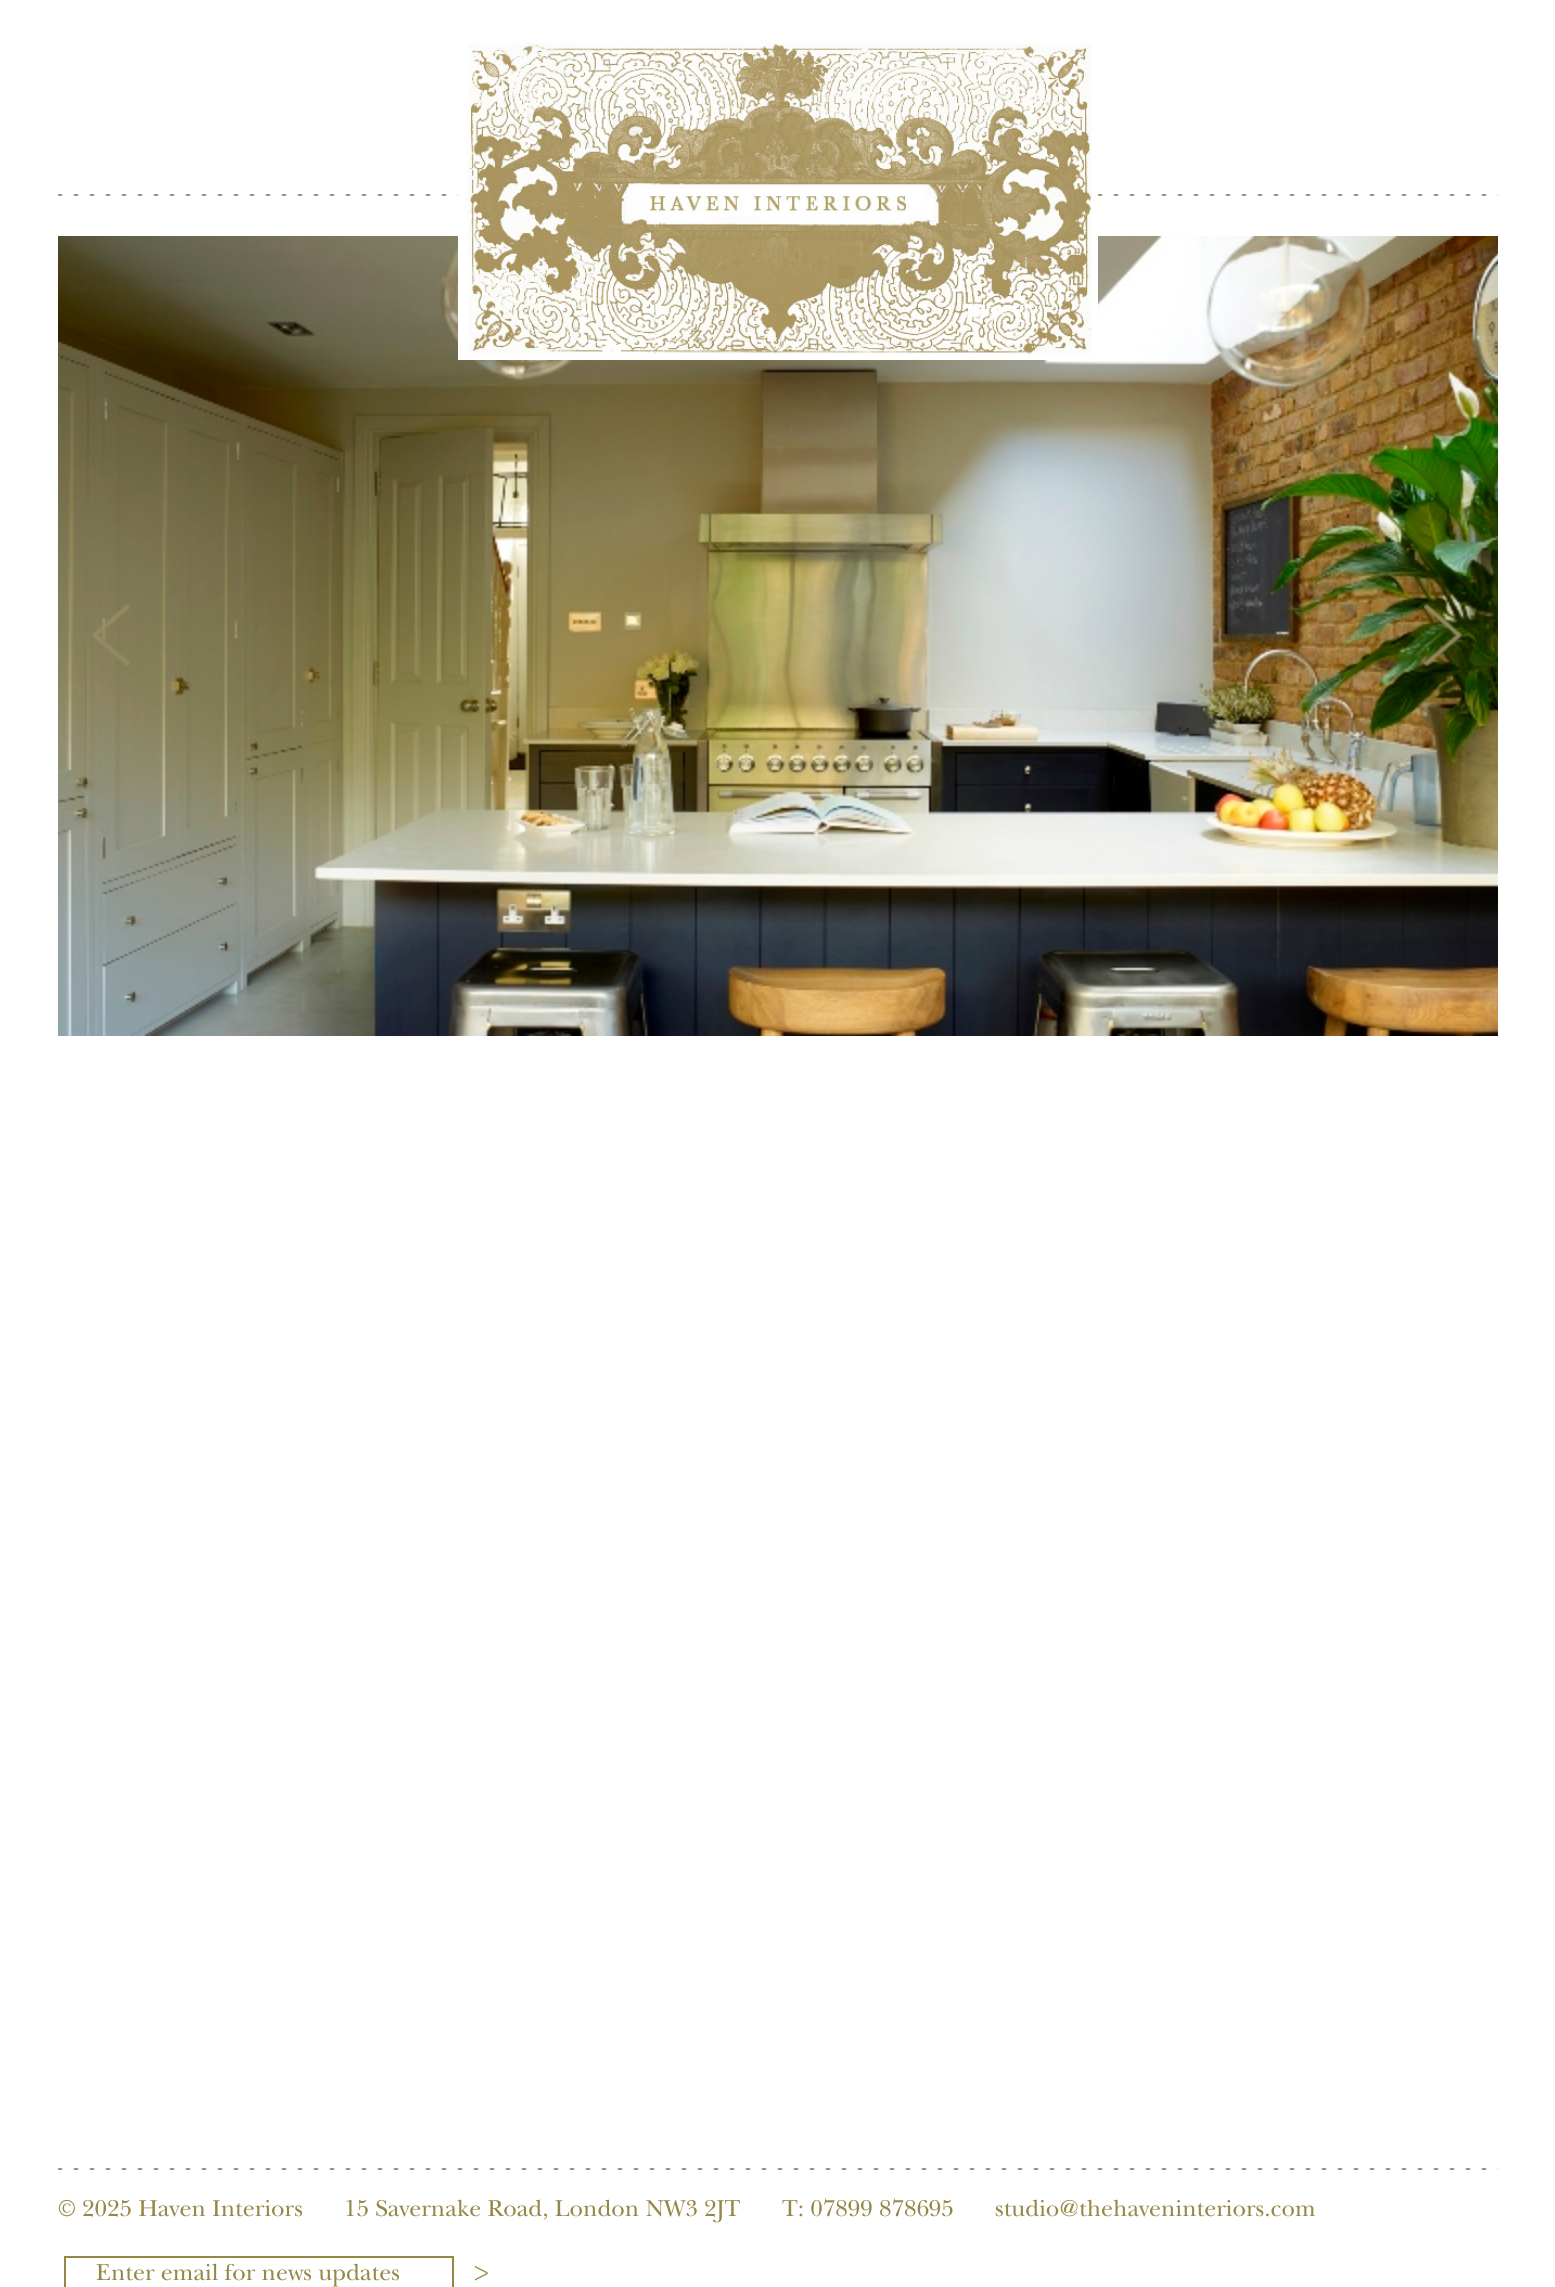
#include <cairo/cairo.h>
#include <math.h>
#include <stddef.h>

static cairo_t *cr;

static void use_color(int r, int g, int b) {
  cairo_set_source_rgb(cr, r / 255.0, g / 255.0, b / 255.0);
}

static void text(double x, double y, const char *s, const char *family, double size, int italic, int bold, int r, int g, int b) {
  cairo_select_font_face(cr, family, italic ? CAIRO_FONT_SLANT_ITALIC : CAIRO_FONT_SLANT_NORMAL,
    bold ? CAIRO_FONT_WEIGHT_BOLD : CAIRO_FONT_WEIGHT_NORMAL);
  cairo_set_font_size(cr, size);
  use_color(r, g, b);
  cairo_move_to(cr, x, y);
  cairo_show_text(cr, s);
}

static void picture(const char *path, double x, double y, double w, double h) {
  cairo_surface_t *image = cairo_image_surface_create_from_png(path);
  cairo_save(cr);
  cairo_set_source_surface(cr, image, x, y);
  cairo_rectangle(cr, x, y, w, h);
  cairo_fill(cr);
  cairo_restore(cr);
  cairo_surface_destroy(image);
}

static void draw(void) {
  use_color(255, 255, 255);
  cairo_paint(cr);
  picture("img_02.png", 58, 194, 1440, 2);
  picture("img_03.png", 58, 236, 1440, 800);
  picture("img_01.png", 458, 40, 640, 320);
  picture("img_04.png", 92, 604, 38, 62);
  picture("img_05.png", 1424, 604, 39, 62);
  picture("img_02.png", 58, 2168, 1440, 2);
  cairo_rectangle(cr, 65, 2257, 388, 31);
  use_color(148, 136, 70);
  cairo_stroke(cr);
  text(58, 2216, "© 2025 Haven Interiors", "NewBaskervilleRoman", 24, 0, 0, 148, 136, 70);
  text(344, 2216, "15 Savernake Road, London NW3 2JT", "NewBaskervilleRoman", 24, 0, 0, 148, 136, 70);
  text(782, 2216, "T: 07899 878695", "NewBaskervilleRoman", 24, 0, 0, 148, 136, 70);
  text(995, 2216, "studio@thehaveninteriors.com", "NewBaskervilleRoman", 24, 0, 0, 148, 136, 70);
  text(96, 2280, "Enter email for news updates", "NewBaskervilleRoman", 24, 0, 0, 148, 136, 70);
  text(474, 2280, ">", "NewBaskervilleRoman", 28, 0, 0, 148, 136, 70);
}

int main(void) {
  cairo_surface_t *surface = cairo_image_surface_create(CAIRO_FORMAT_RGB24, 1555, 2287);
  cr = cairo_create(surface);
  cairo_font_options_t *options = cairo_font_options_create();
  cairo_font_options_set_hint_metrics(options, CAIRO_HINT_METRICS_OFF);
  cairo_font_options_set_hint_style(options, CAIRO_HINT_STYLE_NONE);
  cairo_set_font_options(cr, options);
  cairo_set_miter_limit(cr, 4);
  draw();
  cairo_surface_write_to_png(surface, "out.png");
  cairo_font_options_destroy(options);
  cairo_destroy(cr);
  cairo_surface_destroy(surface);
  return 0;
}
